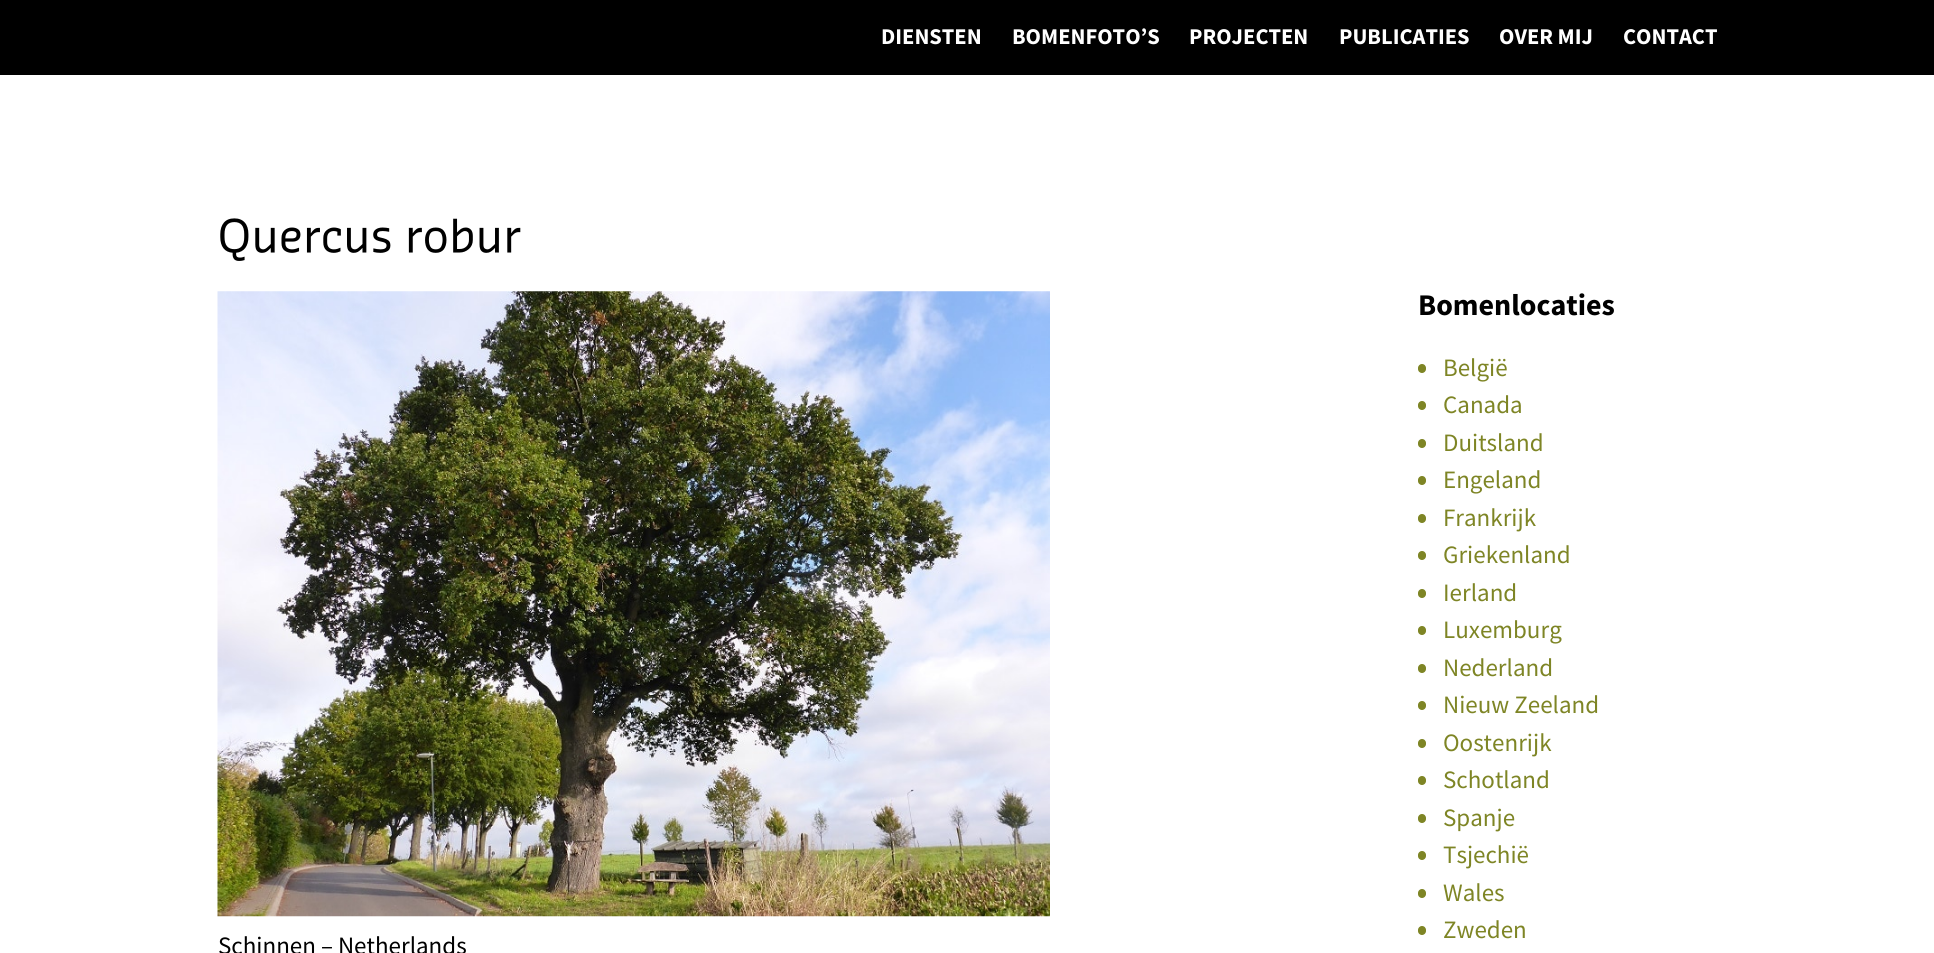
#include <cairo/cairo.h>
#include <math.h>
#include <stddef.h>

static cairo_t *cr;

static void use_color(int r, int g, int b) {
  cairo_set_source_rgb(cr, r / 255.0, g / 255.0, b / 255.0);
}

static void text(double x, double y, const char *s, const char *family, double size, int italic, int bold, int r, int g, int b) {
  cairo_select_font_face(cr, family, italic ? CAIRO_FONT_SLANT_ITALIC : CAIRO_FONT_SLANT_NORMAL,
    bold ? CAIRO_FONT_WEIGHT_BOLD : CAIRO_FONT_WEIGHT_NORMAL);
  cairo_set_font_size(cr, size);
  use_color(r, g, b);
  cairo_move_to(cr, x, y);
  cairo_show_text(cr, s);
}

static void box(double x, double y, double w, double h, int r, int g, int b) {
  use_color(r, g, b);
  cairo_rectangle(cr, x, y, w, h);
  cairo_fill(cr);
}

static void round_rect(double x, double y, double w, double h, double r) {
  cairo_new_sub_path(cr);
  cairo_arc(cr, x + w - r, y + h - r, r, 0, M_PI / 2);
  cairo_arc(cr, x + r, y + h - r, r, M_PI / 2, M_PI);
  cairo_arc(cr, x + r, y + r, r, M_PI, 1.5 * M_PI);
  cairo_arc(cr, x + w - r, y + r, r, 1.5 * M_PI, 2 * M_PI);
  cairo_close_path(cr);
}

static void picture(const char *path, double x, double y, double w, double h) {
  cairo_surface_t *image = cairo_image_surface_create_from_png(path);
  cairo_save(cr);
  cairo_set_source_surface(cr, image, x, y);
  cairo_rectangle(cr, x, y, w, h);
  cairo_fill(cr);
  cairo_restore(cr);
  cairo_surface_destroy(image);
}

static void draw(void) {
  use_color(255, 255, 255);
  cairo_paint(cr);
  box(0, 0, 1934, 75, 0, 0, 0);
  use_color(126, 133, 37);
  round_rect(1418, 364, 8, 9, 4);
  cairo_fill(cr);
  round_rect(1418, 401, 8, 9, 4);
  cairo_fill(cr);
  round_rect(1418, 439, 8, 9, 4);
  cairo_fill(cr);
  round_rect(1418, 476, 8, 9, 4);
  cairo_fill(cr);
  round_rect(1418, 514, 8, 9, 4);
  cairo_fill(cr);
  round_rect(1418, 551, 8, 9, 4);
  cairo_fill(cr);
  round_rect(1418, 589, 8, 9, 4);
  cairo_fill(cr);
  round_rect(1418, 626, 8, 9, 4);
  cairo_fill(cr);
  round_rect(1418, 664, 8, 9, 4);
  cairo_fill(cr);
  round_rect(1418, 701, 8, 9, 4);
  cairo_fill(cr);
  round_rect(1418, 739, 8, 9, 4);
  cairo_fill(cr);
  round_rect(1418, 776, 8, 9, 4);
  cairo_fill(cr);
  round_rect(1418, 814, 8, 9, 4);
  cairo_fill(cr);
  round_rect(1418, 851, 8, 9, 4);
  cairo_fill(cr);
  round_rect(1418, 889, 8, 9, 4);
  cairo_fill(cr);
  round_rect(1418, 926, 8, 9, 4);
  cairo_fill(cr);
  picture("img_01.png", 220, 218, 301, 43);
  picture("img_02.png", 217, 291, 833, 626);
  text(881, 44, "DIENSTEN", "Source Sans Pro", 22.5, 0, 1, 255, 255, 255);
  text(1012, 44, "BOMENFOTO’S", "Source Sans Pro", 22.5, 0, 1, 255, 255, 255);
  text(1189, 44, "PROJECTEN", "Source Sans Pro", 22.5, 0, 1, 255, 255, 255);
  text(1339, 44, "PUBLICATIES", "Source Sans Pro", 22.5, 0, 1, 255, 255, 255);
  text(1499, 44, "OVER MIJ", "Source Sans Pro", 22.5, 0, 1, 255, 255, 255);
  text(1623, 44, "CONTACT", "Source Sans Pro", 22.5, 0, 1, 255, 255, 255);
  text(1418, 315, "Bomenlocaties", "Source Sans Pro", 30, 0, 1, 0, 0, 0);
  text(1443, 376, "België", "Source Sans Pro", 25, 0, 0, 126, 133, 37);
  text(1443, 413, "Canada", "Source Sans Pro", 25, 0, 0, 126, 133, 37);
  text(1443, 451, "Duitsland", "Source Sans Pro", 25, 0, 0, 126, 133, 37);
  text(1443, 488, "Engeland", "Source Sans Pro", 25, 0, 0, 126, 133, 37);
  text(1443, 526, "Frankrijk", "Source Sans Pro", 25, 0, 0, 126, 133, 37);
  text(1443, 563, "Griekenland", "Source Sans Pro", 25, 0, 0, 126, 133, 37);
  text(1443, 601, "Ierland", "Source Sans Pro", 25, 0, 0, 126, 133, 37);
  text(1443, 638, "Luxemburg", "Source Sans Pro", 25, 0, 0, 126, 133, 37);
  text(1443, 676, "Nederland", "Source Sans Pro", 25, 0, 0, 126, 133, 37);
  text(1443, 713, "Nieuw Zeeland", "Source Sans Pro", 25, 0, 0, 126, 133, 37);
  text(1443, 751, "Oostenrijk", "Source Sans Pro", 25, 0, 0, 126, 133, 37);
  text(1443, 788, "Schotland", "Source Sans Pro", 25, 0, 0, 126, 133, 37);
  text(1443, 826, "Spanje", "Source Sans Pro", 25, 0, 0, 126, 133, 37);
  text(1443, 863, "Tsjechië", "Source Sans Pro", 25, 0, 0, 126, 133, 37);
  text(1443, 901, "Wales", "Source Sans Pro", 25, 0, 0, 126, 133, 37);
  text(1443, 938, "Zweden", "Source Sans Pro", 25, 0, 0, 126, 133, 37);
  text(218, 954, "Schinnen – Netherlands", "Source Sans Pro", 25, 0, 0, 0, 0, 0);
}

int main(void) {
  cairo_surface_t *surface = cairo_image_surface_create(CAIRO_FORMAT_RGB24, 1934, 953);
  cr = cairo_create(surface);
  cairo_font_options_t *options = cairo_font_options_create();
  cairo_font_options_set_hint_metrics(options, CAIRO_HINT_METRICS_OFF);
  cairo_font_options_set_hint_style(options, CAIRO_HINT_STYLE_NONE);
  cairo_set_font_options(cr, options);
  cairo_set_miter_limit(cr, 4);
  draw();
  cairo_surface_write_to_png(surface, "out.png");
  cairo_font_options_destroy(options);
  cairo_destroy(cr);
  cairo_surface_destroy(surface);
  return 0;
}
